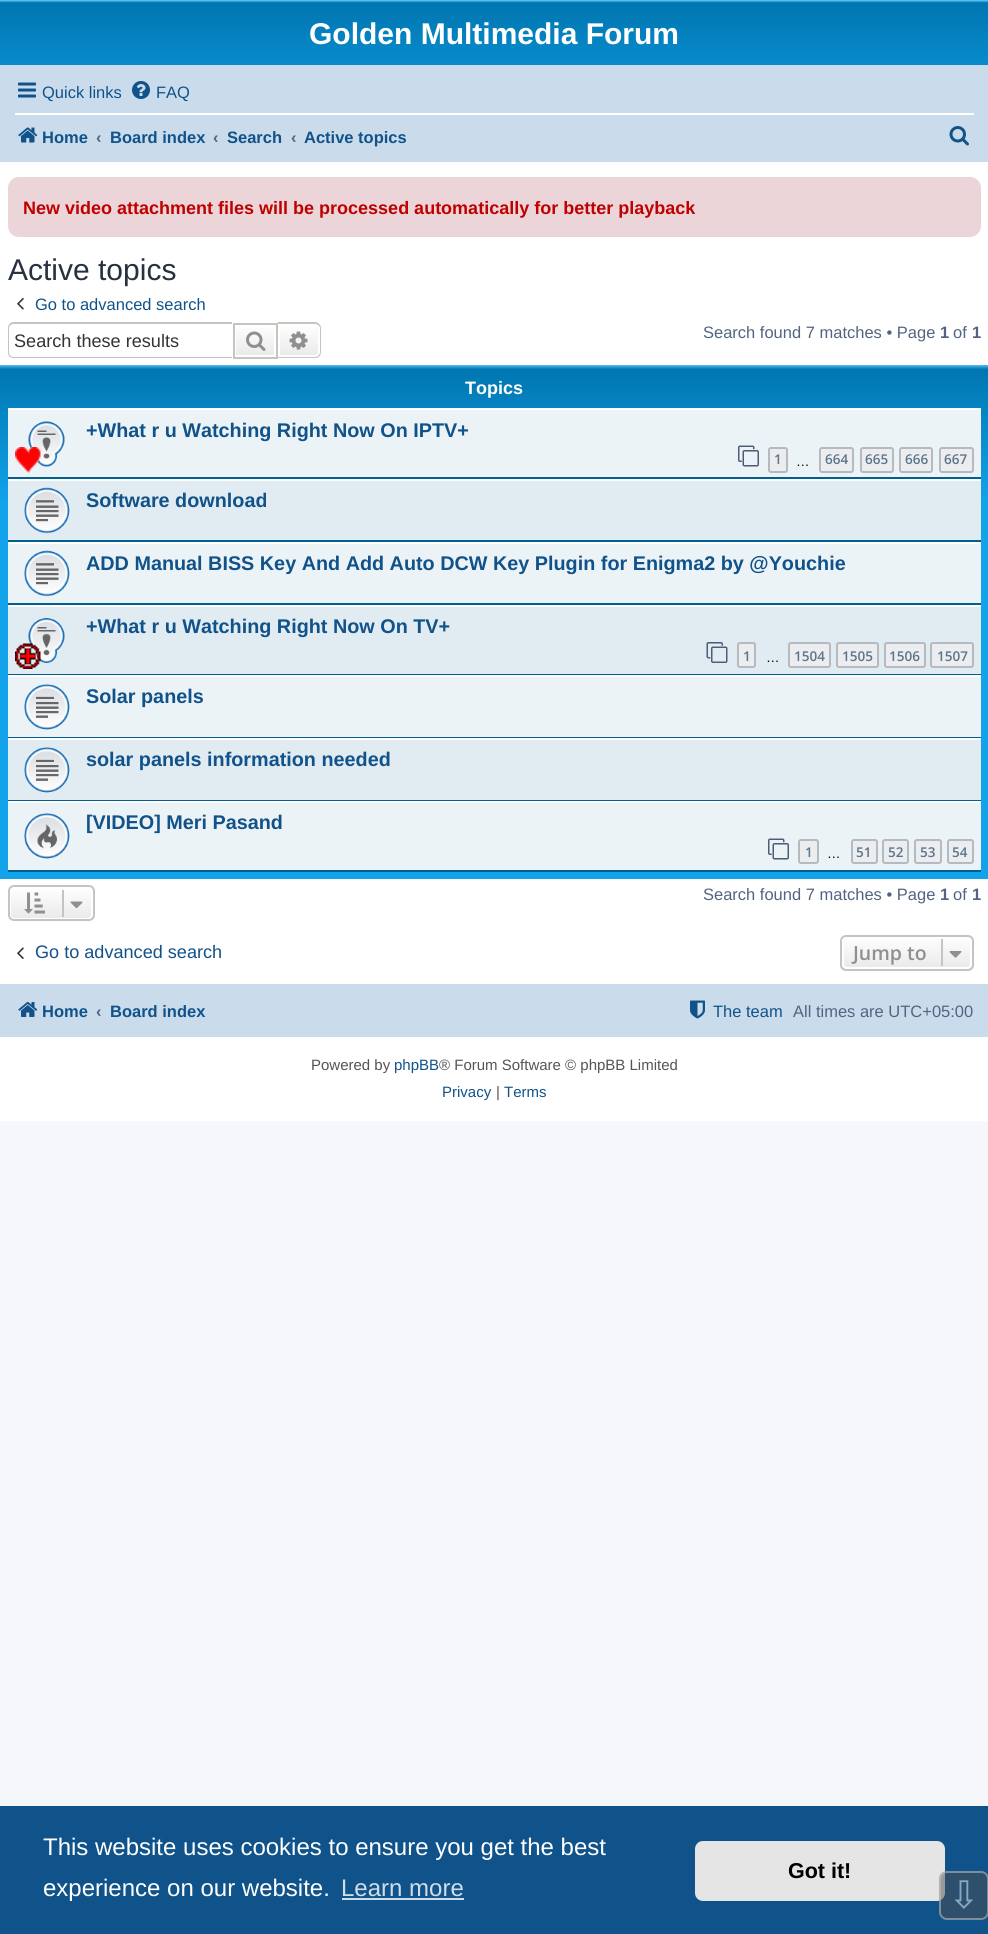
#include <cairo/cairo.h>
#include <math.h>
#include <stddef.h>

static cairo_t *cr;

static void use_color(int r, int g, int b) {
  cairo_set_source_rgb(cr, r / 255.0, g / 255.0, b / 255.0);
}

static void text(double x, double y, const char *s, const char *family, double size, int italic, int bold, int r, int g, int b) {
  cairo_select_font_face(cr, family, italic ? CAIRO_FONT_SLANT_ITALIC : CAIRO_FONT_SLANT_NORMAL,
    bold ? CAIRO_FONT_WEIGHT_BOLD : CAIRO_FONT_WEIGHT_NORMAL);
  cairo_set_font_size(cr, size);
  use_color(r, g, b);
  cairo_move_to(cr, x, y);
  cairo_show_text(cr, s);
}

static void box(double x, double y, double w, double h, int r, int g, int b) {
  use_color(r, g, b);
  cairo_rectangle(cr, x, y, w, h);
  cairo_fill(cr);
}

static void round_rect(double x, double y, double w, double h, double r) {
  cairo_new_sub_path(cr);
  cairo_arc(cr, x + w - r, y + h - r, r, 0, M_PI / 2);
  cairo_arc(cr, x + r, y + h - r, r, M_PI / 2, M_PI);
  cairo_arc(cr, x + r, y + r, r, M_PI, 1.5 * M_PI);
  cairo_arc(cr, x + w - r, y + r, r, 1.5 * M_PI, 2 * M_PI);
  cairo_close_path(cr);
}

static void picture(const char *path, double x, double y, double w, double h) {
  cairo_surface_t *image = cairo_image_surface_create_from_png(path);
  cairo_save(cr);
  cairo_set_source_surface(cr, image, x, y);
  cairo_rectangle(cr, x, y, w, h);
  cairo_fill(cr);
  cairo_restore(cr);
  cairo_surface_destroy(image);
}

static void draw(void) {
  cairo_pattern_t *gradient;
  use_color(245, 247, 250);
  cairo_paint(cr);
  box(0, 162, 988, 959, 255, 255, 255);
  gradient = cairo_pattern_create_linear(494, 0, 494, 138);
  cairo_pattern_add_color_stop_rgba(gradient, 0, 0.416, 0.808, 1, 1);
  cairo_pattern_add_color_stop_rgba(gradient, 0.02, 0, 0.463, 0.694, 1);
  cairo_pattern_add_color_stop_rgba(gradient, 1, 0.071, 0.639, 0.922, 1);
  cairo_set_source(cr, gradient);
  cairo_pattern_destroy(gradient);
  cairo_rectangle(cr, 0, 0, 988, 65);
  cairo_fill(cr);
  box(0, 65, 988, 97, 202, 220, 235);
  picture("img_01.png", 18, 82, 18, 16);
  picture("img_02.png", 132, 81, 18, 18);
  box(15, 113, 959, 2, 255, 255, 255);
  picture("img_03.png", 18, 127, 20, 16);
  picture("img_04.png", 949, 126, 20, 20);
  use_color(236, 213, 216);
  round_rect(8, 177, 973, 60, 11);
  cairo_fill(cr);
  picture("img_05.png", 17, 298, 7, 12);
  use_color(199, 195, 191);
  cairo_set_fill_rule(cr, CAIRO_FILL_RULE_EVEN_ODD);
  cairo_new_path(cr);
  cairo_move_to(cr, 14, 322);
  cairo_line_to(cr, 232, 322);
  cairo_line_to(cr, 232, 358);
  cairo_line_to(cr, 14, 358);
  cairo_curve_to(cr, 10, 358, 8, 356, 8, 352);
  cairo_line_to(cr, 8, 328);
  cairo_curve_to(cr, 8, 325, 10, 322, 14, 322);
  cairo_close_path(cr);
  cairo_move_to(cr, 14, 324);
  cairo_line_to(cr, 232, 324);
  cairo_line_to(cr, 232, 357);
  cairo_line_to(cr, 14, 357);
  cairo_curve_to(cr, 11, 357, 9, 355, 9, 352);
  cairo_line_to(cr, 9, 328);
  cairo_curve_to(cr, 9, 326, 11, 324, 14, 324);
  cairo_close_path(cr);
  cairo_fill(cr);
  gradient = cairo_pattern_create_linear(255, 324, 255, 357);
  cairo_pattern_add_color_stop_rgba(gradient, 0, 1, 1, 1, 1);
  cairo_pattern_add_color_stop_rgba(gradient, 1, 0.914, 0.914, 0.914, 1);
  cairo_set_source(cr, gradient);
  cairo_pattern_destroy(gradient);
  cairo_rectangle(cr, 236, 328, 38, 27);
  cairo_fill(cr);
  cairo_rectangle(cr, 234, 324, 43, 34);
  use_color(199, 195, 191);
  cairo_stroke(cr);
  picture("img_06.png", 246, 331, 20, 20);
  gradient = cairo_pattern_create_linear(299, 324, 299, 357);
  cairo_pattern_add_color_stop_rgba(gradient, 0, 1, 1, 1, 1);
  cairo_pattern_add_color_stop_rgba(gradient, 1, 0.914, 0.914, 0.914, 1);
  cairo_set_source(cr, gradient);
  cairo_pattern_destroy(gradient);
  cairo_new_path(cr);
  cairo_move_to(cr, 279, 325);
  cairo_line_to(cr, 315, 325);
  cairo_curve_to(cr, 317, 325, 319, 327, 319, 329);
  cairo_line_to(cr, 319, 352);
  cairo_curve_to(cr, 319, 354, 317, 356, 315, 356);
  cairo_line_to(cr, 279, 356);
  cairo_close_path(cr);
  cairo_fill_preserve(cr);
  use_color(255, 255, 255);
  cairo_stroke(cr);
  use_color(199, 195, 191);
  cairo_new_path(cr);
  cairo_move_to(cr, 278, 322);
  cairo_line_to(cr, 315, 322);
  cairo_curve_to(cr, 318, 322, 321, 325, 321, 328);
  cairo_line_to(cr, 321, 352);
  cairo_curve_to(cr, 321, 356, 318, 358, 315, 358);
  cairo_line_to(cr, 278, 358);
  cairo_close_path(cr);
  cairo_move_to(cr, 278, 324);
  cairo_line_to(cr, 315, 324);
  cairo_curve_to(cr, 317, 324, 320, 326, 320, 328);
  cairo_line_to(cr, 320, 352);
  cairo_curve_to(cr, 320, 355, 317, 357, 315, 357);
  cairo_line_to(cr, 278, 357);
  cairo_close_path(cr);
  cairo_fill(cr);
  picture("img_07.png", 289, 331, 19, 19);
  gradient = cairo_pattern_create_linear(494, 364, 494, 879);
  cairo_pattern_add_color_stop_rgba(gradient, 0, 0.416, 0.808, 1, 1);
  cairo_pattern_add_color_stop_rgba(gradient, 0.01, 0, 0.463, 0.694, 1);
  cairo_pattern_add_color_stop_rgba(gradient, 0.27, 0.071, 0.639, 0.922, 1);
  cairo_pattern_add_color_stop_rgba(gradient, 1, 0.071, 0.639, 0.922, 1);
  cairo_set_source(cr, gradient);
  cairo_pattern_destroy(gradient);
  cairo_rectangle(cr, 0, 365, 988, 514);
  cairo_fill(cr);
  box(8, 410, 973, 67, 236, 243, 247);
  box(8, 408, 973, 2, 255, 255, 255);
  box(8, 477, 973, 2, 0, 96, 143);
  picture("img_08.png", 28, 421, 37, 46);
  picture("img_09.png", 15, 447, 26, 26);
  picture("img_10.png", 738, 445, 21, 22);
  use_color(236, 237, 238);
  round_rect(769, 448, 18, 24, 2);
  cairo_fill_preserve(cr);
  use_color(180, 186, 192);
  cairo_stroke(cr);
  use_color(236, 237, 238);
  round_rect(820, 448, 33, 24, 2);
  cairo_fill_preserve(cr);
  use_color(180, 186, 192);
  cairo_stroke(cr);
  use_color(236, 237, 238);
  round_rect(861, 448, 32, 24, 2);
  cairo_fill_preserve(cr);
  use_color(180, 186, 192);
  cairo_stroke(cr);
  use_color(236, 237, 238);
  round_rect(900, 448, 32, 24, 2);
  cairo_fill_preserve(cr);
  use_color(180, 186, 192);
  cairo_stroke(cr);
  use_color(236, 237, 238);
  round_rect(940, 448, 33, 24, 2);
  cairo_fill_preserve(cr);
  use_color(180, 186, 192);
  cairo_stroke(cr);
  box(8, 481, 973, 59, 225, 235, 242);
  box(8, 479, 973, 2, 255, 255, 255);
  box(8, 540, 973, 2, 0, 96, 143);
  picture("img_11.png", 24, 487, 46, 47);
  box(8, 544, 973, 59, 236, 243, 247);
  box(8, 542, 973, 2, 255, 255, 255);
  box(8, 603, 973, 2, 0, 96, 143);
  picture("img_12.png", 24, 550, 46, 47);
  box(8, 607, 973, 67, 225, 235, 242);
  box(8, 605, 973, 2, 255, 255, 255);
  box(8, 674, 973, 1, 0, 96, 143);
  picture("img_13.png", 28, 618, 37, 45);
  picture("img_14.png", 15, 643, 26, 26);
  picture("img_15.png", 706, 642, 22, 21);
  use_color(236, 237, 238);
  round_rect(738, 643, 17, 24, 2);
  cairo_fill_preserve(cr);
  use_color(180, 186, 192);
  cairo_stroke(cr);
  use_color(236, 237, 238);
  round_rect(789, 643, 41, 24, 2);
  cairo_fill_preserve(cr);
  use_color(180, 186, 192);
  cairo_stroke(cr);
  use_color(236, 237, 238);
  round_rect(837, 643, 41, 24, 2);
  cairo_fill_preserve(cr);
  use_color(180, 186, 192);
  cairo_stroke(cr);
  use_color(236, 237, 238);
  round_rect(885, 643, 40, 24, 2);
  cairo_fill_preserve(cr);
  use_color(180, 186, 192);
  cairo_stroke(cr);
  use_color(236, 237, 238);
  round_rect(931, 643, 42, 24, 2);
  cairo_fill_preserve(cr);
  use_color(180, 186, 192);
  cairo_stroke(cr);
  box(8, 677, 973, 60, 236, 243, 247);
  box(8, 675, 973, 2, 255, 255, 255);
  box(8, 737, 973, 1, 0, 96, 143);
  picture("img_16.png", 24, 684, 46, 46);
  box(8, 740, 973, 60, 225, 235, 242);
  box(8, 738, 973, 2, 255, 255, 255);
  box(8, 800, 973, 1, 0, 96, 143);
  picture("img_17.png", 24, 747, 46, 46);
  box(8, 803, 973, 67, 236, 243, 247);
  box(8, 801, 973, 2, 255, 255, 255);
  box(8, 870, 973, 2, 0, 96, 143);
  picture("img_18.png", 24, 813, 46, 46);
  picture("img_10.png", 768, 838, 21, 22);
  use_color(236, 237, 238);
  round_rect(799, 840, 19, 23, 2);
  cairo_fill_preserve(cr);
  use_color(180, 186, 192);
  cairo_stroke(cr);
  use_color(236, 237, 238);
  round_rect(852, 840, 25, 23, 2);
  cairo_fill_preserve(cr);
  use_color(180, 186, 192);
  cairo_stroke(cr);
  use_color(236, 237, 238);
  round_rect(883, 840, 25, 23, 2);
  cairo_fill_preserve(cr);
  use_color(180, 186, 192);
  cairo_stroke(cr);
  use_color(236, 237, 238);
  round_rect(915, 840, 26, 23, 2);
  cairo_fill_preserve(cr);
  use_color(180, 186, 192);
  cairo_stroke(cr);
  use_color(236, 237, 238);
  round_rect(948, 840, 25, 23, 2);
  cairo_fill_preserve(cr);
  use_color(180, 186, 192);
  cairo_stroke(cr);
  cairo_save(cr);
  cairo_set_fill_rule(cr, CAIRO_FILL_RULE_WINDING);
  round_rect(8, 885, 87, 36, 6);
  cairo_clip(cr);
  gradient = cairo_pattern_create_linear(51, 887, 51, 920);
  cairo_pattern_add_color_stop_rgba(gradient, 0, 1, 1, 1, 1);
  cairo_pattern_add_color_stop_rgba(gradient, 1, 0.914, 0.914, 0.914, 1);
  cairo_set_source(cr, gradient);
  cairo_pattern_destroy(gradient);
  cairo_rectangle(cr, 8, 887, 87, 33);
  cairo_fill(cr);
  cairo_restore(cr);
  round_rect(10, 888, 82, 31, 4);
  use_color(255, 255, 255);
  cairo_stroke(cr);
  round_rect(9, 886, 85, 34, 5);
  use_color(199, 195, 191);
  cairo_stroke(cr);
  picture("img_19.png", 24, 892, 21, 22);
  box(62, 890, 2, 27, 199, 195, 191);
  picture("img_20.png", 70, 901, 13, 8);
  picture("img_21.png", 17, 947, 7, 12);
  cairo_save(cr);
  cairo_set_fill_rule(cr, CAIRO_FILL_RULE_WINDING);
  round_rect(840, 935, 134, 36, 6);
  cairo_clip(cr);
  gradient = cairo_pattern_create_linear(907, 936, 907, 969);
  cairo_pattern_add_color_stop_rgba(gradient, 0, 1, 1, 1, 1);
  cairo_pattern_add_color_stop_rgba(gradient, 1, 0.914, 0.914, 0.914, 1);
  cairo_set_source(cr, gradient);
  cairo_pattern_destroy(gradient);
  cairo_rectangle(cr, 840, 936, 134, 33);
  cairo_fill(cr);
  cairo_restore(cr);
  round_rect(843, 937, 128, 31, 4);
  use_color(255, 255, 255);
  cairo_stroke(cr);
  round_rect(841, 936, 132, 34, 5);
  use_color(199, 195, 191);
  cairo_stroke(cr);
  box(941, 939, 2, 27, 199, 195, 191);
  picture("img_22.png", 949, 951, 13, 7);
  box(0, 984, 988, 53, 202, 220, 235);
  picture("img_23.png", 18, 1002, 20, 15);
  picture("img_24.png", 690, 1000, 15, 19);
  box(0, 1806, 988, 128, 15, 83, 138);
  box(342, 1898, 122, 2, 207, 221, 232);
  use_color(229, 229, 229);
  round_rect(695, 1841, 250, 60, 8);
  cairo_fill(cr);
  cairo_set_source_rgba(cr, 0.31, 0.31, 0.31, 0.5);
  round_rect(939, 1871, 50, 49, 8);
  cairo_fill(cr);
  round_rect(940, 1872, 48, 47, 7);
  cairo_set_source_rgba(cr, 0.8, 0.8, 0.8, 0.5);
  cairo_stroke(cr);
  text(309, 44, "Golden Multimedia Forum", "Liberation Sans", 30, 0, 1, 255, 255, 255);
  text(42, 98, "Quick links", "Liberation Sans", 16.5, 0, 0, 16, 82, 137);
  text(156, 98, "FAQ", "Liberation Sans", 16.5, 0, 0, 16, 82, 137);
  text(42, 143, "Home", "Liberation Sans", 16.5, 0, 1, 16, 82, 137);
  text(96, 143, "‹", "Liberation Sans", 16.5, 0, 1, 83, 100, 130);
  text(110, 143, "Board index", "Liberation Sans", 16.5, 0, 1, 16, 82, 137);
  text(213, 143, "‹", "Liberation Sans", 16.5, 0, 1, 83, 100, 130);
  text(227, 143, "Search", "Liberation Sans", 16.5, 0, 1, 16, 82, 137);
  text(291, 143, "‹", "Liberation Sans", 16.5, 0, 1, 83, 100, 130);
  text(304, 143, "Active topics", "Liberation Sans", 16.5, 0, 1, 16, 82, 137);
  text(23, 214, "New video attachment files will be processed automatically for better playback", "Liberation Sans", 18, 0, 1, 191, 0, 0);
  text(8, 280, "Active topics", "Liberation Sans", 30, 0, 0, 40, 49, 63);
  text(35, 310, "Go to advanced search", "Liberation Sans", 16.5, 0, 0, 16, 82, 137);
  text(14, 347, "Search these results", "Liberation Sans", 18.1, 0, 0, 51, 51, 51);
  text(703, 338, "Search found 7 matches • Page", "Liberation Sans", 16.5, 0, 0, 83, 100, 130);
  text(940, 338, "1", "Liberation Sans", 16.5, 0, 1, 83, 100, 130);
  text(953, 338, "of", "Liberation Sans", 16.5, 0, 0, 83, 100, 130);
  text(972, 338, "1", "Liberation Sans", 16.5, 0, 1, 83, 100, 130);
  text(465, 394, "Topics", "Liberation Sans", 18, 0, 1, 255, 255, 255);
  text(86, 437, "+What r u Watching Right Now On IPTV+", "Liberation Sans", 19.8, 0, 1, 16, 82, 137);
  text(774, 464, "1", "Open Sans SemiBold", 13.5, 0, 0, 92, 117, 140);
  text(796, 466, "…", "Liberation Sans", 13.5, 0, 0, 0, 0, 0);
  text(825, 464, "664", "Open Sans SemiBold", 13.5, 0, 0, 92, 117, 140);
  text(865, 464, "665", "Open Sans SemiBold", 13.5, 0, 0, 92, 117, 140);
  text(905, 464, "666", "Open Sans SemiBold", 13.5, 0, 0, 92, 117, 140);
  text(944, 464, "667", "Open Sans SemiBold", 13.5, 0, 0, 92, 117, 140);
  text(86, 507, "Software download", "Liberation Sans", 19.8, 0, 1, 16, 82, 137);
  text(86, 570, "ADD Manual BISS Key And Add Auto DCW Key Plugin for Enigma2 by @Youchie", "Liberation Sans", 19.8, 0, 1, 16, 82, 137);
  text(86, 633, "+What r u Watching Right Now On TV+", "Liberation Sans", 19.8, 0, 1, 16, 82, 137);
  text(743, 661, "1", "Open Sans SemiBold", 13.5, 0, 0, 92, 117, 140);
  text(766, 662, "…", "Liberation Sans", 13.5, 0, 0, 0, 0, 0);
  text(794, 661, "1504", "Open Sans SemiBold", 13.5, 0, 0, 92, 117, 140);
  text(842, 661, "1505", "Open Sans SemiBold", 13.5, 0, 0, 92, 117, 140);
  text(889, 661, "1506", "Open Sans SemiBold", 13.5, 0, 0, 92, 117, 140);
  text(937, 661, "1507", "Open Sans SemiBold", 13.5, 0, 0, 92, 117, 140);
  text(86, 703, "Solar panels", "Liberation Sans", 19.8, 0, 1, 16, 82, 137);
  text(86, 766, "solar panels information needed", "Liberation Sans", 19.8, 0, 1, 16, 82, 137);
  text(86, 829, "[VIDEO] Meri Pasand", "Liberation Sans", 19.8, 0, 1, 16, 82, 137);
  text(805, 857, "1", "Open Sans SemiBold", 13.5, 0, 0, 92, 117, 140);
  text(827, 858, "…", "Liberation Sans", 13.5, 0, 0, 0, 0, 0);
  text(856, 857, "51", "Open Sans SemiBold", 13.5, 0, 0, 92, 117, 140);
  text(888, 857, "52", "Open Sans SemiBold", 13.5, 0, 0, 92, 117, 140);
  text(920, 857, "53", "Open Sans SemiBold", 13.5, 0, 0, 92, 117, 140);
  text(952, 857, "54", "Open Sans SemiBold", 13.5, 0, 0, 92, 117, 140);
  text(703, 900, "Search found 7 matches • Page", "Liberation Sans", 16.5, 0, 0, 83, 100, 130);
  text(940, 900, "1", "Liberation Sans", 16.5, 0, 1, 83, 100, 130);
  text(953, 900, "of", "Liberation Sans", 16.5, 0, 0, 83, 100, 130);
  text(972, 900, "1", "Liberation Sans", 16.5, 0, 1, 83, 100, 130);
  text(35, 958, "Go to advanced search", "Liberation Sans", 18.1, 0, 0, 16, 82, 137);
  text(853, 960, "Jump to", "Open Sans SemiBold", 19.5, 0, 0, 143, 143, 143);
  text(42, 1017, "Home", "Liberation Sans", 16.5, 0, 1, 16, 82, 137);
  text(96, 1017, "‹", "Liberation Sans", 16.5, 0, 1, 83, 100, 130);
  text(110, 1017, "Board index", "Liberation Sans", 16.5, 0, 1, 16, 82, 137);
  text(713, 1017, "The team", "Liberation Sans", 16.5, 0, 0, 16, 82, 137);
  text(793, 1017, "All times are UTC+05:00", "Liberation Sans", 16.5, 0, 0, 83, 100, 130);
  text(311, 1070, "Powered by", "Liberation Sans", 15, 0, 0, 85, 85, 85);
  text(394, 1070, "phpBB", "Liberation Sans", 15, 0, 0, 16, 82, 137);
  text(439, 1070, "® Forum Software © phpBB Limited", "Liberation Sans", 15, 0, 0, 85, 85, 85);
  text(442, 1097, "Privacy", "Liberation Sans", 15, 0, 0, 16, 82, 137);
  text(496, 1097, "|", "Liberation Sans", 15, 0, 0, 85, 85, 85);
  text(504, 1097, "Terms", "Liberation Sans", 15, 0, 0, 16, 82, 137);
  text(43, 1855, "This website uses cookies to ensure you get the best", "Liberation Sans", 24, 0, 0, 255, 255, 255);
  text(43, 1896, "experience on our website.", "Liberation Sans", 24, 0, 0, 255, 255, 255);
  text(341, 1896, "Learn more", "Liberation Sans", 24, 0, 0, 207, 221, 232);
  text(788, 1878, "Got it!", "Liberation Sans", 21.5, 0, 1, 0, 0, 0);
  text(948, 1908, "⇩", "DejaVu Sans", 38, 0, 0, 135, 169, 197);
}

int main(void) {
  cairo_surface_t *surface = cairo_image_surface_create(CAIRO_FORMAT_RGB24, 988, 1934);
  cr = cairo_create(surface);
  cairo_font_options_t *options = cairo_font_options_create();
  cairo_font_options_set_hint_metrics(options, CAIRO_HINT_METRICS_OFF);
  cairo_font_options_set_hint_style(options, CAIRO_HINT_STYLE_NONE);
  cairo_set_font_options(cr, options);
  cairo_set_miter_limit(cr, 4);
  draw();
  cairo_surface_write_to_png(surface, "out.png");
  cairo_font_options_destroy(options);
  cairo_destroy(cr);
  cairo_surface_destroy(surface);
  return 0;
}
